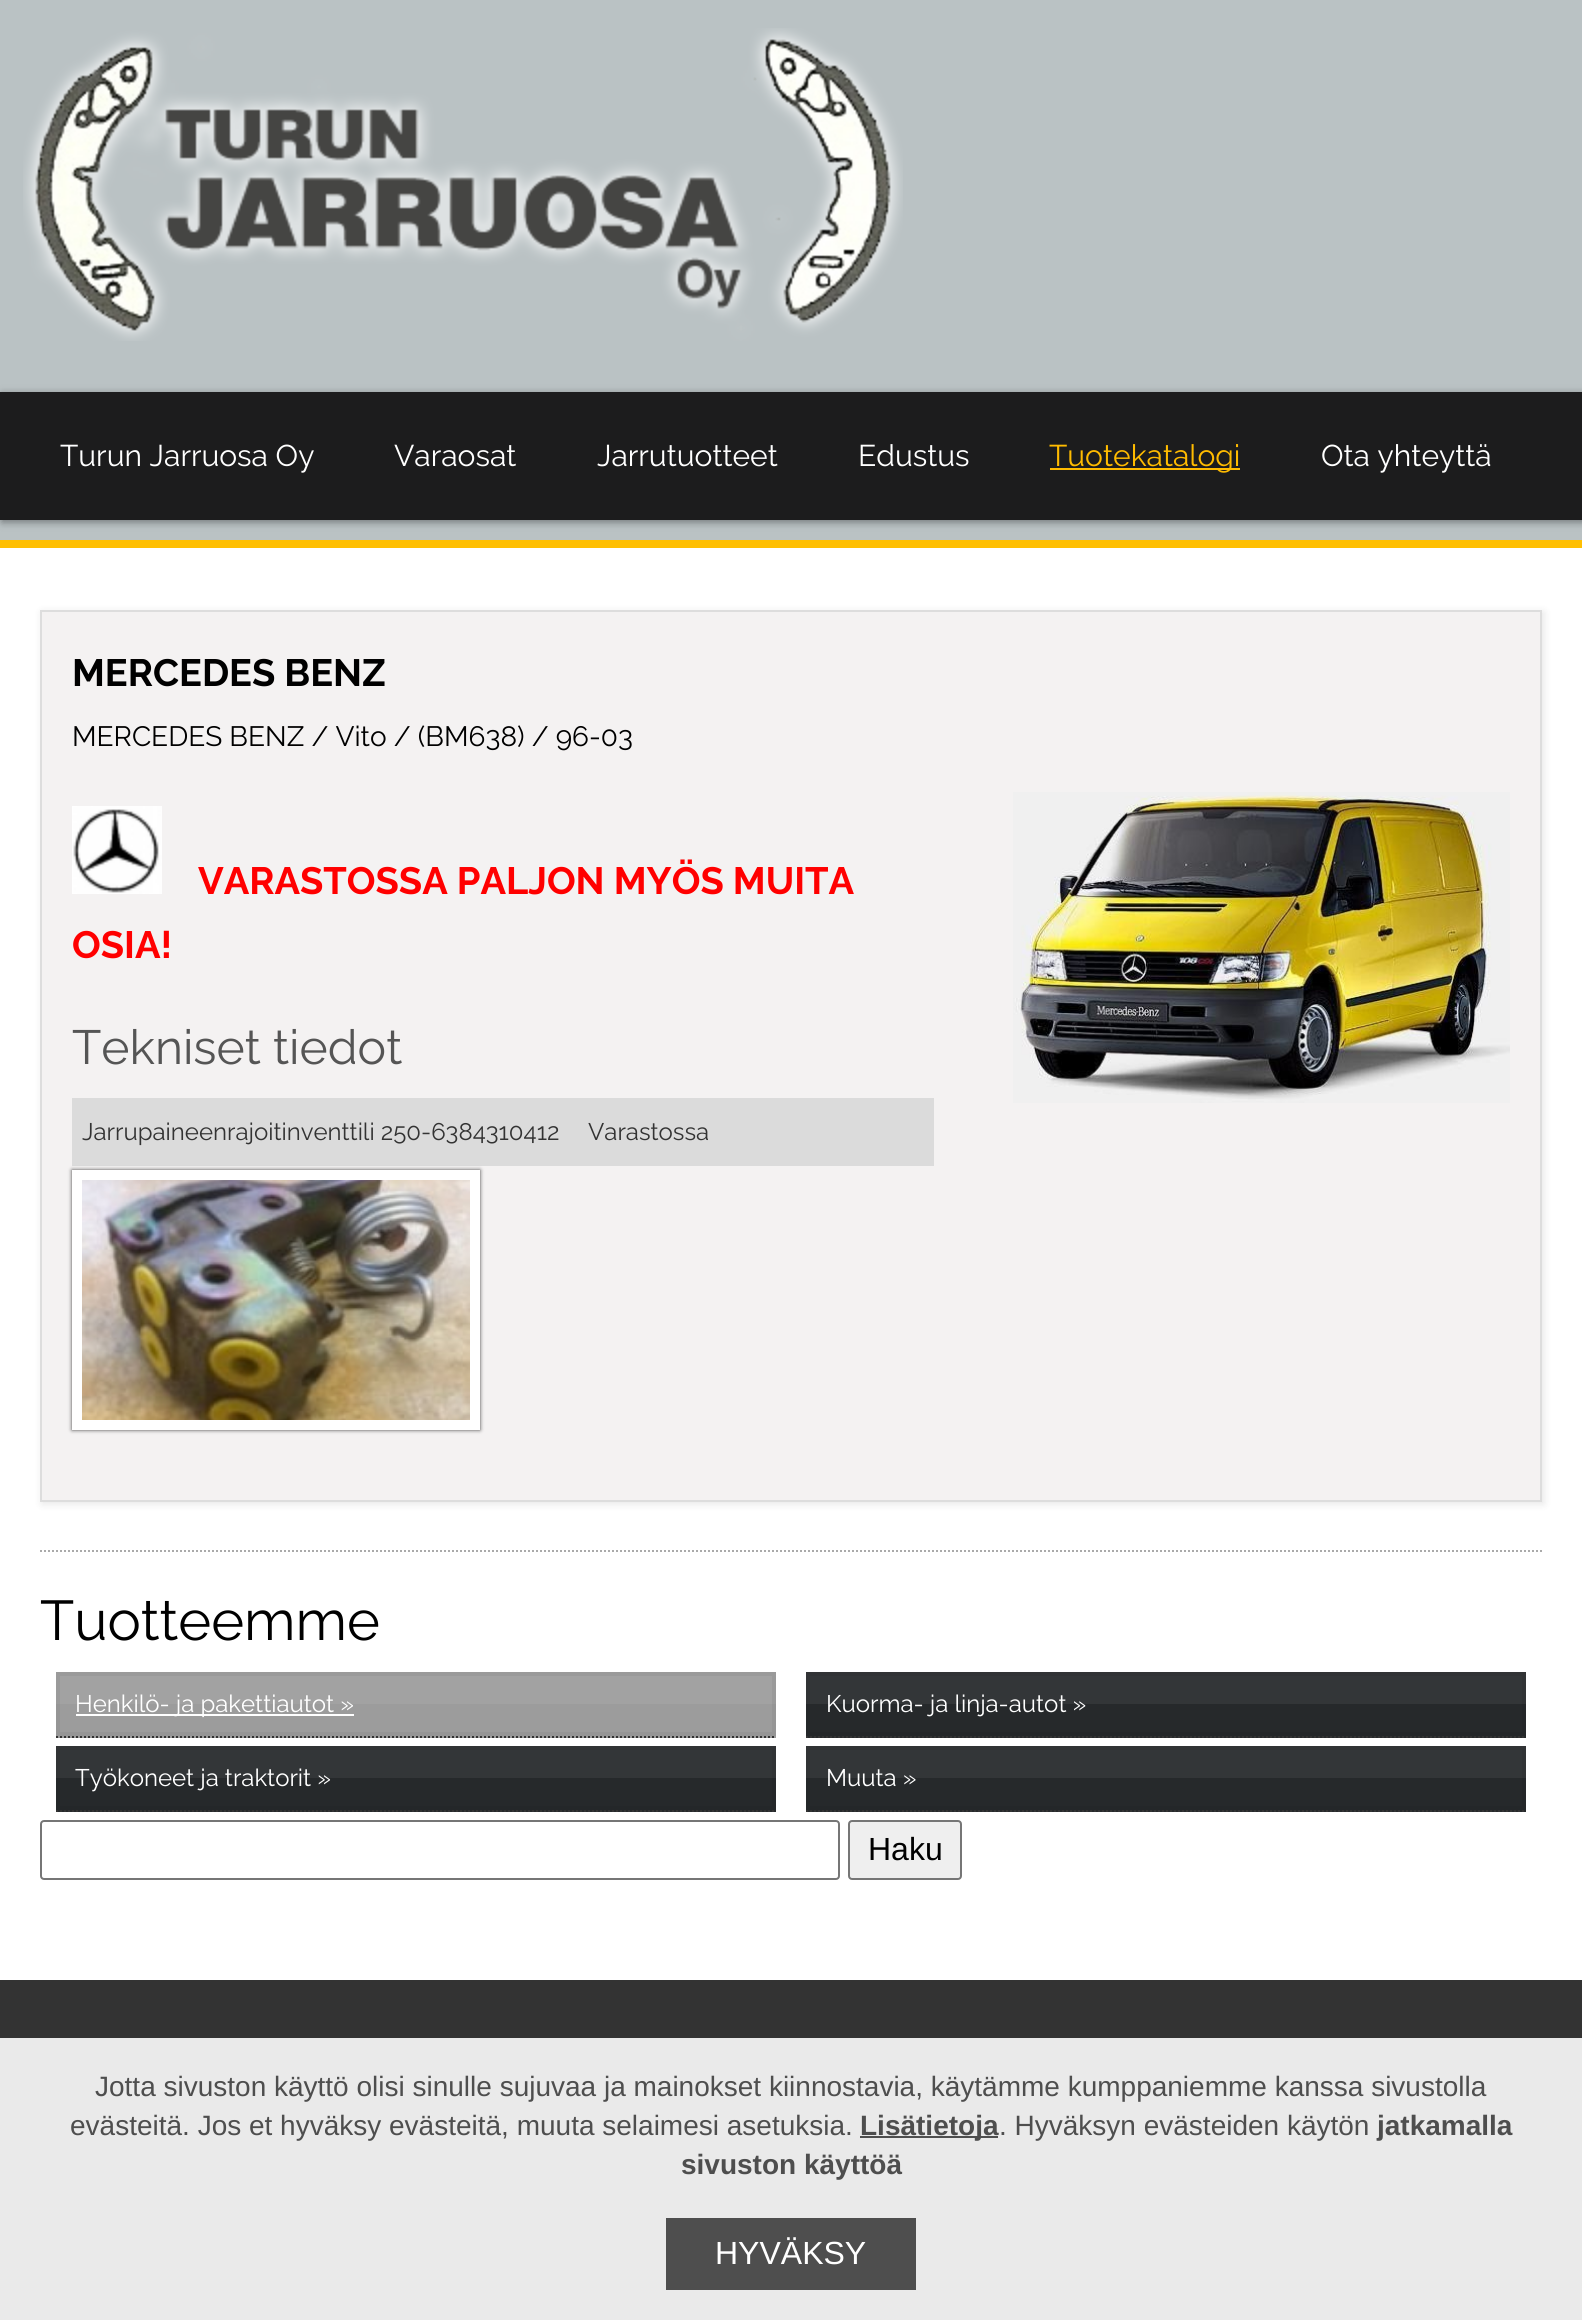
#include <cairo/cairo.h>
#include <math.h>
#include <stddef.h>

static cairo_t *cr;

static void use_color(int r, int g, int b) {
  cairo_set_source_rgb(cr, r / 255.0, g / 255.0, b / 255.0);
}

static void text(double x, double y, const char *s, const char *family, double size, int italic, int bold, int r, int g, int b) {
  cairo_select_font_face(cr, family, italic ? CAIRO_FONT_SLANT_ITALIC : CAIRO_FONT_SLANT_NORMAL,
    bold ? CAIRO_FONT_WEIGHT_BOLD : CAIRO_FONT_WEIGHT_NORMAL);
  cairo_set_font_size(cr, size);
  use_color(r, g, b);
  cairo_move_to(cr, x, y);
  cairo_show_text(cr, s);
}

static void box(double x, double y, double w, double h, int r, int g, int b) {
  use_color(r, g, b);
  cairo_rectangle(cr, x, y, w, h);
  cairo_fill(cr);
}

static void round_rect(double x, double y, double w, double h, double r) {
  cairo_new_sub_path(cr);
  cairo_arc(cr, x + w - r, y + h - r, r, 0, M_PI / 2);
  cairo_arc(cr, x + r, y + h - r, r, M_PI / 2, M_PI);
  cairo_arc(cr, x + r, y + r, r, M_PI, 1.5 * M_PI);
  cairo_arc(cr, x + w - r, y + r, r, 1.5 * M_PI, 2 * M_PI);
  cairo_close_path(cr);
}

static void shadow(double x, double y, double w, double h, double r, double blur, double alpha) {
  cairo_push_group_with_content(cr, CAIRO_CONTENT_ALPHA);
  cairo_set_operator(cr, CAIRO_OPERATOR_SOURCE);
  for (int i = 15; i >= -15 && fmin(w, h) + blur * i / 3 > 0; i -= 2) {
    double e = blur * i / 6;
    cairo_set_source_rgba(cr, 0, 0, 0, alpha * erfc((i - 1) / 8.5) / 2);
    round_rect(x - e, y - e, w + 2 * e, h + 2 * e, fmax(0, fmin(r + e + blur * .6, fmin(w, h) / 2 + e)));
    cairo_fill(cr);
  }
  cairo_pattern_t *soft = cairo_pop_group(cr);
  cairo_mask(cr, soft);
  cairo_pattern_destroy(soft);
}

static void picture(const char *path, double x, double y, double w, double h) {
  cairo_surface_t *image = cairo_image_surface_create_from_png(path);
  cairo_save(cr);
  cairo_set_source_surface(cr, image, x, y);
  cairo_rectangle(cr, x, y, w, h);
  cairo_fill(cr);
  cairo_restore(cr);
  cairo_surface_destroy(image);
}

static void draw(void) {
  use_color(51, 51, 51);
  cairo_paint(cr);
  box(0, 0, 1582, 540, 186, 194, 196);
  box(0, 540, 1582, 8, 255, 191, 2);
  picture("img_01.png", 23, 28, 880, 313);
  use_color(0, 0, 0);
  shadow(2, 394, 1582, 128, 0, 4, 0.4);
  box(0, 392, 1582, 128, 28, 28, 29);
  box(1050, 468, 190, 2, 255, 187, 0);
  box(0, 548, 1582, 1432, 255, 255, 255);
  use_color(0, 0, 0);
  shadow(42, 612, 1502, 892, 0, 4, 0.1);
  use_color(244, 242, 242);
  cairo_rectangle(cr, 41, 611, 1500, 890);
  cairo_fill_preserve(cr);
  use_color(221, 221, 221);
  cairo_stroke(cr);
  picture("img_02.png", 72, 806, 90, 88);
  box(72, 1098, 862, 68, 219, 219, 219);
  use_color(68, 68, 68);
  shadow(72, 1170, 408, 260, 0, 2, 1);
  picture("img_03.png", 82, 1180, 388, 240);
  cairo_rectangle(cr, 77, 1175, 398, 250);
  use_color(255, 255, 255);
  cairo_set_line_width(cr, 10);
  cairo_stroke(cr);
  picture("img_04.png", 1013, 792, 497, 311);
  cairo_new_path(cr);
  cairo_move_to(cr, 40, 1551);
  cairo_line_to(cr, 1542, 1551);
  use_color(170, 170, 170);
  cairo_set_line_width(cr, 2);
  cairo_set_dash(cr, (double[]){2, 2}, 2, 0);
  cairo_stroke(cr);
  box(56, 1704, 720, 34, 156, 156, 156);
  cairo_new_path(cr);
  cairo_move_to(cr, 56, 1737);
  cairo_line_to(cr, 776, 1737);
  use_color(51, 51, 51);
  cairo_stroke(cr);
  box(56, 1672, 720, 32, 162, 162, 162);
  cairo_rectangle(cr, 58, 1674, 716, 60);
  cairo_set_source_rgba(cr, 0, 0, 0, 0.05);
  cairo_set_line_width(cr, 4);
  cairo_set_dash(cr, NULL, 0, 0);
  cairo_stroke(cr);
  box(76, 1714, 278, 2, 255, 255, 255);
  box(806, 1704, 720, 34, 38, 41, 43);
  cairo_new_path(cr);
  cairo_move_to(cr, 806, 1737);
  cairo_line_to(cr, 1526, 1737);
  use_color(51, 51, 51);
  cairo_set_line_width(cr, 2);
  cairo_set_dash(cr, (double[]){2, 2}, 2, 0);
  cairo_stroke(cr);
  box(806, 1672, 720, 32, 51, 54, 56);
  cairo_rectangle(cr, 808, 1674, 716, 60);
  cairo_set_source_rgba(cr, 0, 0, 0, 0.05);
  cairo_set_line_width(cr, 4);
  cairo_set_dash(cr, NULL, 0, 0);
  cairo_stroke(cr);
  box(56, 1778, 720, 34, 38, 41, 43);
  cairo_new_path(cr);
  cairo_move_to(cr, 56, 1811);
  cairo_line_to(cr, 776, 1811);
  use_color(51, 51, 51);
  cairo_set_line_width(cr, 2);
  cairo_set_dash(cr, (double[]){2, 2}, 2, 0);
  cairo_stroke(cr);
  box(56, 1746, 720, 32, 51, 54, 56);
  cairo_rectangle(cr, 58, 1748, 716, 60);
  cairo_set_source_rgba(cr, 0, 0, 0, 0.05);
  cairo_set_line_width(cr, 4);
  cairo_set_dash(cr, NULL, 0, 0);
  cairo_stroke(cr);
  box(806, 1778, 720, 34, 38, 41, 43);
  cairo_new_path(cr);
  cairo_move_to(cr, 806, 1811);
  cairo_line_to(cr, 1526, 1811);
  use_color(51, 51, 51);
  cairo_set_line_width(cr, 2);
  cairo_set_dash(cr, (double[]){2, 2}, 2, 0);
  cairo_stroke(cr);
  box(806, 1746, 720, 32, 51, 54, 56);
  cairo_rectangle(cr, 808, 1748, 716, 60);
  cairo_set_source_rgba(cr, 0, 0, 0, 0.05);
  cairo_set_line_width(cr, 4);
  cairo_set_dash(cr, NULL, 0, 0);
  cairo_stroke(cr);
  round_rect(41, 1821, 798, 58, 3);
  use_color(118, 118, 118);
  cairo_set_line_width(cr, 2);
  cairo_stroke(cr);
  use_color(239, 239, 239);
  round_rect(849, 1821, 112, 58, 3);
  cairo_fill_preserve(cr);
  use_color(118, 118, 118);
  cairo_stroke(cr);
  box(0, 2038, 1582, 282, 234, 234, 234);
  box(860, 2136, 138, 2, 78, 78, 78);
  box(666, 2218, 250, 72, 78, 78, 78);
  text(60, 466, "Turun Jarruosa Oy", "Raleway", 30, 0, 0, 255, 255, 255);
  text(394, 466, "Varaosat", "Raleway", 30, 0, 0, 255, 255, 255);
  text(597, 466, "Jarrutuotteet", "Raleway", 30, 0, 0, 255, 255, 255);
  text(858, 466, "Edustus", "Raleway", 30, 0, 0, 255, 255, 255);
  text(1049, 466, "Tuotekatalogi", "Raleway", 30, 0, 0, 255, 187, 0);
  text(1321, 466, "Ota yhteyttä", "Raleway", 30, 0, 0, 255, 255, 255);
  text(72, 686, "MERCEDES BENZ", "Raleway", 38, 0, 1, 0, 0, 0);
  text(72, 746, "MERCEDES BENZ / Vito / (BM638) / 96-03", "Raleway", 28, 0, 0, 0, 0, 0);
  text(198, 894, "VARASTOSSA PALJON MYÖS MUITA", "Raleway", 38, 0, 1, 255, 0, 0);
  text(72, 958, "OSIA!", "Raleway", 38, 0, 1, 255, 0, 0);
  text(72, 1064, "Tekniset tiedot", "Raleway", 48, 0, 0, 85, 85, 85);
  text(82, 1140, "Jarrupaineenrajoitinventtili 250-6384310412", "Raleway", 24, 0, 0, 51, 51, 51);
  text(588, 1140, "Varastossa", "Raleway", 24, 0, 0, 51, 51, 51);
  text(40, 1640, "Tuotteemme", "Raleway", 56, 0, 0, 0, 0, 0);
  text(75, 1712, "Henkilö- ja pakettiautot »", "Raleway", 24, 0, 0, 255, 255, 255);
  text(826, 1712, "Kuorma- ja linja-autot »", "Raleway", 24, 0, 0, 255, 255, 255);
  text(75, 1786, "Työkoneet ja traktorit »", "Raleway", 24, 0, 0, 255, 255, 255);
  text(826, 1786, "Muuta »", "Raleway", 24, 0, 0, 255, 255, 255);
  text(868, 1860, "Haku", "Liberation Sans", 32, 0, 0, 0, 0, 0);
  text(95, 2096, "Jotta sivuston käyttö olisi sinulle sujuvaa ja mainokset kiinnostavia, käytämme kumppaniemme kanssa sivustolla", "Liberation Sans", 28, 0, 0, 78, 78, 78);
  text(70, 2135, "evästeitä. Jos et hyväksy evästeitä, muuta selaimesi asetuksia.", "Liberation Sans", 28, 0, 0, 78, 78, 78);
  text(860, 2135, "Lisätietoja", "Liberation Sans", 28, 0, 1, 78, 78, 78);
  text(999, 2135, ". Hyväksyn evästeiden käytön", "Liberation Sans", 28, 0, 0, 78, 78, 78);
  text(1377, 2135, "jatkamalla", "Liberation Sans", 28, 0, 1, 78, 78, 78);
  text(681, 2174, "sivuston käyttöä", "Liberation Sans", 28, 0, 1, 78, 78, 78);
  text(715, 2264, "HYVÄKSY", "Liberation Sans", 32, 0, 0, 255, 255, 255);
}

int main(void) {
  cairo_surface_t *surface = cairo_image_surface_create(CAIRO_FORMAT_RGB24, 1582, 2320);
  cr = cairo_create(surface);
  cairo_font_options_t *options = cairo_font_options_create();
  cairo_font_options_set_hint_metrics(options, CAIRO_HINT_METRICS_OFF);
  cairo_font_options_set_hint_style(options, CAIRO_HINT_STYLE_NONE);
  cairo_set_font_options(cr, options);
  cairo_set_miter_limit(cr, 4);
  draw();
  cairo_surface_write_to_png(surface, "out.png");
  cairo_font_options_destroy(options);
  cairo_destroy(cr);
  cairo_surface_destroy(surface);
  return 0;
}
